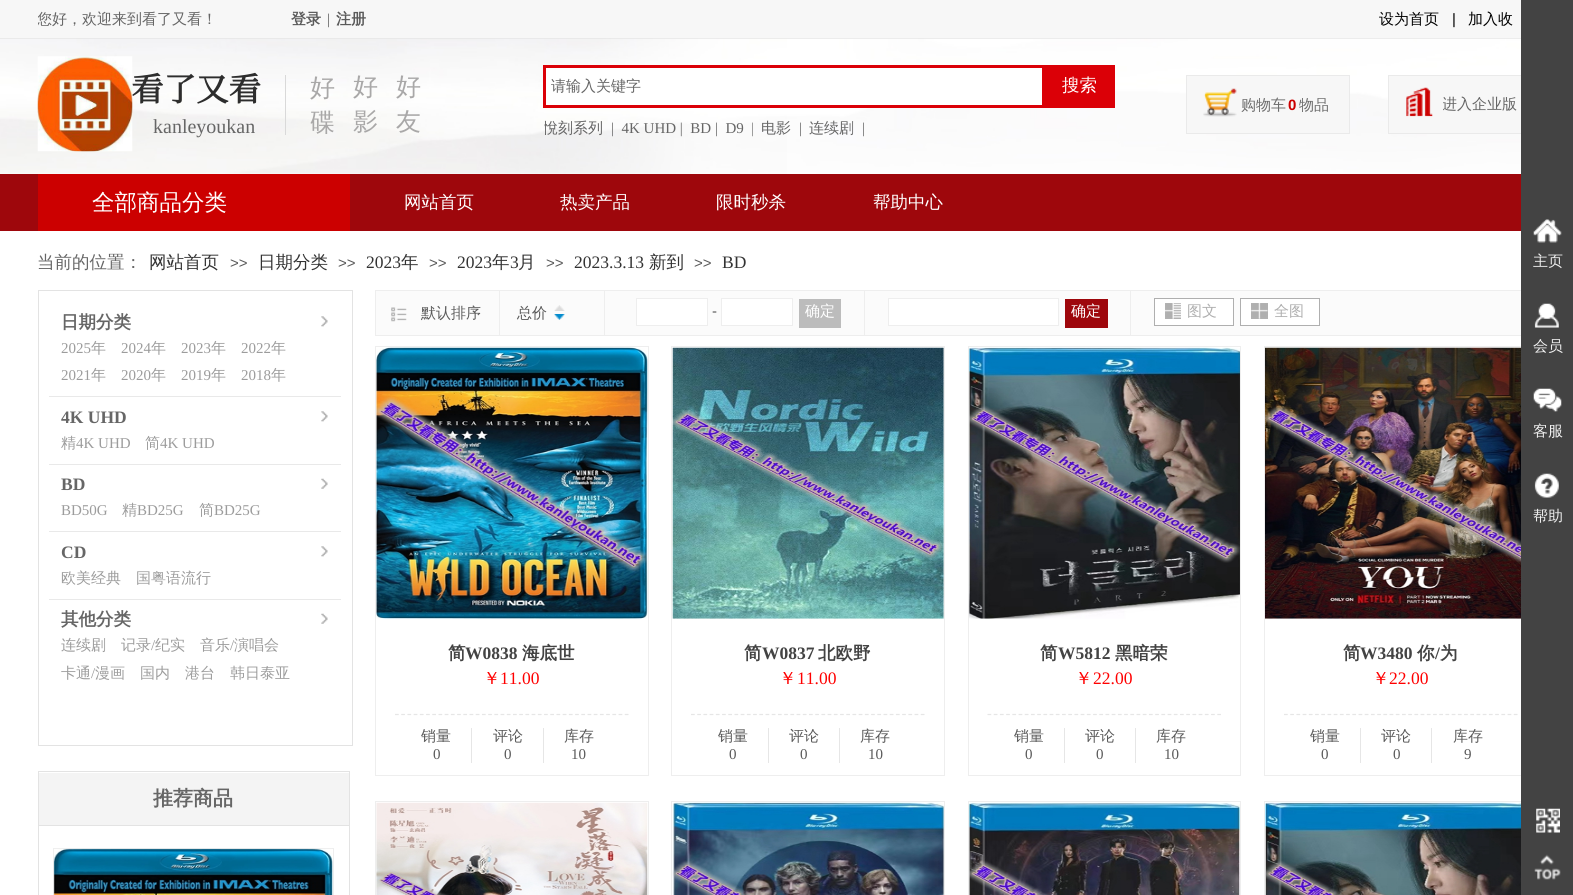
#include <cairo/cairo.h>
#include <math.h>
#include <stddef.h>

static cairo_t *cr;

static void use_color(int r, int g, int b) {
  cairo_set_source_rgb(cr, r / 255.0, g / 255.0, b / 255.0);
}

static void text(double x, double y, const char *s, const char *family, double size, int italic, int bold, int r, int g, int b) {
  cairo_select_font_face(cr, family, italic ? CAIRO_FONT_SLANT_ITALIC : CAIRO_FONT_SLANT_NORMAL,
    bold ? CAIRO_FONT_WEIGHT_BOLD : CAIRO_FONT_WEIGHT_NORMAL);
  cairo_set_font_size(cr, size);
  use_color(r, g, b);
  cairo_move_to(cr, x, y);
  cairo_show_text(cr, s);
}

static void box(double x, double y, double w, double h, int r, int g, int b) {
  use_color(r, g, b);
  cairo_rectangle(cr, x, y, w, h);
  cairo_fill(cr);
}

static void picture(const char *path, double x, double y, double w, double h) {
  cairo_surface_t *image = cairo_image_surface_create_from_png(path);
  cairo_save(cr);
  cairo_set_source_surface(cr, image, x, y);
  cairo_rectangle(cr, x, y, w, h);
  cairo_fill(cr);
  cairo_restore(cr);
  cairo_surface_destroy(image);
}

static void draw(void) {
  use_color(255, 255, 255);
  cairo_paint(cr);
  box(0, 0, 1521, 38, 247, 247, 247);
  box(0, 38, 1521, 1, 229, 229, 229);
  picture("img_01.png", 0, 38, 1521, 136);
  box(285, 75, 1, 60, 217, 217, 217);
  use_color(247, 247, 247);
  cairo_rectangle(cr, 1186.5, 75.5, 163, 58);
  cairo_fill_preserve(cr);
  use_color(234, 234, 234);
  cairo_set_line_width(cr, 1);
  cairo_stroke(cr);
  box(1389, 76, 132, 57, 247, 247, 247);
  cairo_rectangle(cr, 1388.5, 75.5, 149, 58);
  use_color(234, 234, 234);
  cairo_stroke(cr);
  picture("img_03.png", 1203, 88, 34, 29);
  picture("img_04.png", 1406, 87, 27, 30);
  use_color(255, 255, 255);
  cairo_rectangle(cr, 544.5, 66.5, 499, 40);
  cairo_fill_preserve(cr);
  use_color(219, 0, 7);
  cairo_set_line_width(cr, 3);
  cairo_stroke(cr);
  box(1045, 65, 70, 43, 219, 0, 7);
  box(0, 174, 1521, 57, 158, 7, 12);
  box(38, 174, 312, 57, 204, 0, 0);
  cairo_rectangle(cr, 38.5, 290.5, 314, 455);
  use_color(227, 227, 227);
  cairo_set_line_width(cr, 1);
  cairo_stroke(cr);
  box(49, 396, 292, 1, 233, 233, 233);
  picture("img_05.png", 321, 316, 7, 11);
  box(49, 464, 292, 1, 233, 233, 233);
  picture("img_05.png", 321, 411, 7, 11);
  box(49, 531, 292, 1, 233, 233, 233);
  picture("img_06.png", 321, 478, 7, 11);
  box(49, 599, 292, 1, 233, 233, 233);
  picture("img_05.png", 321, 546, 7, 11);
  picture("img_06.png", 321, 613, 7, 11);
  box(376, 291, 1145, 44, 251, 251, 251);
  cairo_rectangle(cr, 375.5, 290.5, 1162, 45);
  use_color(238, 238, 238);
  cairo_stroke(cr);
  picture("img_07.png", 391, 307, 16, 15);
  box(499, 291, 1, 44, 238, 238, 238);
  box(604, 291, 1, 44, 238, 238, 238);
  box(554, 305, 11, 6, 220, 220, 220);
  picture("img_08.png", 554, 305, 11, 6);
  box(554, 314, 11, 6, 4, 139, 205);
  picture("img_09.png", 554, 314, 11, 6);
  use_color(255, 255, 255);
  cairo_rectangle(cr, 636.5, 298.5, 71, 27);
  cairo_fill_preserve(cr);
  use_color(238, 238, 238);
  cairo_stroke(cr);
  use_color(255, 255, 255);
  cairo_rectangle(cr, 721.5, 298.5, 71, 27);
  cairo_fill_preserve(cr);
  use_color(238, 238, 238);
  cairo_stroke(cr);
  box(864, 291, 1, 44, 238, 238, 238);
  box(799, 299, 42, 29, 188, 188, 188);
  use_color(255, 255, 255);
  cairo_rectangle(cr, 888.5, 298.5, 170, 27);
  cairo_fill_preserve(cr);
  use_color(238, 238, 238);
  cairo_stroke(cr);
  box(1130, 291, 1, 44, 238, 238, 238);
  box(1065, 299, 43, 29, 158, 7, 12);
  use_color(255, 255, 255);
  cairo_rectangle(cr, 1154.5, 298.5, 79, 27);
  cairo_fill_preserve(cr);
  use_color(175, 175, 175);
  cairo_stroke(cr);
  box(1165, 303, 16, 16, 175, 175, 175);
  picture("img_10.png", 1165, 303, 16, 16);
  use_color(255, 255, 255);
  cairo_rectangle(cr, 1240.5, 298.5, 79, 27);
  cairo_fill_preserve(cr);
  use_color(175, 175, 175);
  cairo_stroke(cr);
  box(1251, 303, 17, 16, 175, 175, 175);
  picture("img_11.png", 1251, 303, 17, 16);
  cairo_rectangle(cr, 375.5, 346.5, 273, 429);
  use_color(238, 238, 238);
  cairo_stroke(cr);
  picture("img_12.png", 376, 347, 272, 272);
  cairo_new_path(cr);
  cairo_move_to(cr, 395, 714.5);
  cairo_line_to(cr, 629, 714.5);
  use_color(230, 230, 230);
  cairo_set_line_width(cr, 1.2);
  cairo_set_dash(cr, (double[]){3.75, 2.46}, 2, 0);
  cairo_stroke(cr);
  box(471, 728, 1, 35, 230, 230, 230);
  box(543, 728, 1, 35, 230, 230, 230);
  cairo_rectangle(cr, 671.5, 346.5, 273, 429);
  use_color(238, 238, 238);
  cairo_set_line_width(cr, 1);
  cairo_set_dash(cr, NULL, 0, 0);
  cairo_stroke(cr);
  picture("img_13.png", 672, 347, 272, 272);
  cairo_new_path(cr);
  cairo_move_to(cr, 691, 714.5);
  cairo_line_to(cr, 925, 714.5);
  use_color(230, 230, 230);
  cairo_set_line_width(cr, 1.2);
  cairo_set_dash(cr, (double[]){3.75, 2.46}, 2, 0);
  cairo_stroke(cr);
  box(768, 728, 1, 35, 230, 230, 230);
  box(839, 728, 1, 35, 230, 230, 230);
  cairo_rectangle(cr, 968.5, 346.5, 272, 429);
  use_color(238, 238, 238);
  cairo_set_line_width(cr, 1);
  cairo_set_dash(cr, NULL, 0, 0);
  cairo_stroke(cr);
  picture("img_14.png", 968, 347, 272, 272);
  cairo_new_path(cr);
  cairo_move_to(cr, 987.5, 714.5);
  cairo_line_to(cr, 1221, 714.5);
  use_color(230, 230, 230);
  cairo_set_line_width(cr, 1.2);
  cairo_set_dash(cr, (double[]){3.75, 2.46}, 2, 0);
  cairo_stroke(cr);
  box(1064, 728, 1, 35, 230, 230, 230);
  box(1135, 728, 1, 35, 230, 230, 230);
  cairo_rectangle(cr, 1264.5, 346.5, 273, 429);
  use_color(238, 238, 238);
  cairo_set_line_width(cr, 1);
  cairo_set_dash(cr, NULL, 0, 0);
  cairo_stroke(cr);
  picture("img_15.png", 1265, 347, 256, 272);
  cairo_new_path(cr);
  cairo_move_to(cr, 1284, 714.5);
  cairo_line_to(cr, 1517.5, 714.5);
  use_color(230, 230, 230);
  cairo_set_line_width(cr, 1.2);
  cairo_set_dash(cr, (double[]){3.75, 2.46}, 2, 0);
  cairo_stroke(cr);
  box(1360, 728, 1, 35, 230, 230, 230);
  box(1431, 728, 1, 35, 230, 230, 230);
  cairo_rectangle(cr, 375.5, 801.5, 273, 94);
  use_color(238, 238, 238);
  cairo_set_line_width(cr, 1);
  cairo_set_dash(cr, NULL, 0, 0);
  cairo_stroke(cr);
  picture("img_16.png", 376, 802, 272, 93);
  cairo_rectangle(cr, 671.5, 801.5, 273, 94);
  cairo_stroke(cr);
  picture("img_17.png", 672, 802, 272, 93);
  cairo_rectangle(cr, 968.5, 801.5, 272, 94);
  cairo_stroke(cr);
  picture("img_18.png", 968, 802, 272, 93);
  cairo_rectangle(cr, 1264.5, 801.5, 273, 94);
  cairo_stroke(cr);
  picture("img_19.png", 1265, 802, 256, 93);
  cairo_rectangle(cr, 38.5, 771.5, 311, 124);
  use_color(227, 227, 227);
  cairo_stroke(cr);
  box(39, 773, 310, 52, 244, 244, 244);
  box(38, 825, 311, 1, 227, 227, 227);
  cairo_rectangle(cr, 53.5, 848.5, 280, 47);
  use_color(238, 238, 238);
  cairo_stroke(cr);
  picture("img_20.png", 53, 848, 280, 47);
  box(1521, 0, 52, 895, 67, 67, 67);
  picture("img_21.png", 1533, 219, 29, 24);
  picture("img_22.png", 1534, 303, 25, 25);
  picture("img_23.png", 1533, 388, 29, 24);
  picture("img_24.png", 1534, 473, 25, 25);
  picture("img_25.png", 1536, 808, 24, 25);
  picture("img_26.png", 1534, 854, 27, 26);
  cairo_save(cr);
  cairo_rectangle(cr, 38, 9, 436, 19);
  cairo_clip(cr);
  text(37, 24, "您好，欢迎来到看了又看！", "WenQuanYi Zen Hei Medium", 15, 0, 0, 102, 102, 102);
  cairo_restore(cr);
  text(291, 24, "登录", "WenQuanYi Zen Hei", 15, 0, 1, 90, 90, 90);
  text(327, 24, "|", "Liberation Serif", 15, 0, 0, 90, 90, 90);
  text(336, 24, "注册", "WenQuanYi Zen Hei", 15, 0, 1, 90, 90, 90);
  text(1379, 24, "设为首页", "WenQuanYi Zen Hei Medium", 15, 0, 0, 0, 0, 0);
  text(1452, 24, "|", "Liberation Sans", 15, 0, 0, 0, 0, 0);
  text(1468, 24, "加入收", "WenQuanYi Zen Hei Medium", 15, 0, 0, 0, 0, 0);
  text(131, 101, "看了又看", "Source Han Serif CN", 32.5, 0, 1, 45, 45, 45);
  picture("img_02.png", 37, 56, 96, 96);
  text(310, 96, "好", "WenQuanYi Zen Hei Medium", 25, 0, 0, 169, 168, 168);
  text(310, 131, "碟", "WenQuanYi Zen Hei Medium", 25, 0, 0, 169, 168, 168);
  text(353, 95, "好", "WenQuanYi Zen Hei Medium", 25, 0, 0, 169, 168, 168);
  text(353, 130, "影", "WenQuanYi Zen Hei Medium", 25, 0, 0, 169, 168, 168);
  text(396, 95, "好", "WenQuanYi Zen Hei Medium", 25, 0, 0, 169, 168, 168);
  text(396, 130, "友", "WenQuanYi Zen Hei Medium", 25, 0, 0, 169, 168, 168);
  text(1241, 110, "购物车", "WenQuanYi Zen Hei Medium", 15, 0, 0, 109, 109, 109);
  text(1288, 110, "0", "Liberation Sans", 15, 0, 1, 204, 0, 0);
  text(1299, 110, "物品", "WenQuanYi Zen Hei Medium", 15, 0, 0, 109, 109, 109);
  cairo_save(cr);
  cairo_rectangle(cr, 1443, 94, 80, 22);
  cairo_clip(cr);
  text(1442, 109, "进入企业版", "WenQuanYi Zen Hei Medium", 15, 0, 0, 102, 102, 102);
  cairo_restore(cr);
  text(153, 133, "kanleyoukan", "Liberation Serif", 20, 0, 0, 102, 102, 102);
  cairo_save(cr);
  cairo_rectangle(cr, 544, 118, 504, 27);
  cairo_clip(cr);
  text(543, 133, "悅刻系列", "WenQuanYi Zen Hei Medium", 15, 0, 0, 102, 102, 102);
  cairo_restore(cr);
  text(611, 133, "|  4K UHD |  BD |  D9  |", "Liberation Serif", 15, 0, 0, 102, 102, 102);
  text(761, 133, "电影", "WenQuanYi Zen Hei Medium", 15, 0, 0, 102, 102, 102);
  text(799, 133, "|", "Liberation Serif", 15, 0, 0, 102, 102, 102);
  text(809, 133, "连续剧", "WenQuanYi Zen Hei Medium", 15, 0, 0, 102, 102, 102);
  text(862, 133, "|", "Liberation Serif", 15, 0, 0, 102, 102, 102);
  text(551, 91, "请输入关键字", "WenQuanYi Zen Hei Medium", 15, 0, 0, 102, 102, 102);
  text(1062, 91, "搜索", "WenQuanYi Zen Hei Medium", 17.5, 0, 0, 255, 255, 255);
  text(92, 210, "全部商品分类", "WenQuanYi Zen Hei Medium", 22.5, 0, 0, 255, 255, 255);
  text(404, 208, "网站首页", "WenQuanYi Zen Hei Medium", 17.5, 0, 0, 255, 255, 255);
  text(560, 208, "热卖产品", "WenQuanYi Zen Hei Medium", 17.5, 0, 0, 255, 255, 255);
  text(716, 208, "限时秒杀", "WenQuanYi Zen Hei Medium", 17.5, 0, 0, 255, 255, 255);
  text(873, 208, "帮助中心", "WenQuanYi Zen Hei Medium", 17.5, 0, 0, 255, 255, 255);
  text(37, 268, "当前的位置：", "WenQuanYi Zen Hei Medium", 17.5, 0, 0, 102, 102, 102);
  text(149, 268, "网站首页", "WenQuanYi Zen Hei Medium", 17.5, 0, 0, 51, 51, 51);
  text(230, 268, ">>", "Liberation Sans", 15, 0, 0, 90, 90, 90);
  text(258, 268, "日期分类", "WenQuanYi Zen Hei Medium", 17.5, 0, 0, 51, 51, 51);
  text(338, 268, ">>", "Liberation Sans", 15, 0, 0, 90, 90, 90);
  text(366, 268, "2023", "Liberation Serif", 17.5, 0, 0, 51, 51, 51);
  text(401, 268, "年", "WenQuanYi Zen Hei Medium", 17.5, 0, 0, 51, 51, 51);
  text(429, 268, ">>", "Liberation Sans", 15, 0, 0, 90, 90, 90);
  text(457, 268, "2023", "Liberation Serif", 17.5, 0, 0, 51, 51, 51);
  text(492, 268, "年", "WenQuanYi Zen Hei Medium", 17.5, 0, 0, 51, 51, 51);
  text(510, 268, "3", "Liberation Serif", 17.5, 0, 0, 51, 51, 51);
  text(518, 268, "月", "WenQuanYi Zen Hei Medium", 17.5, 0, 0, 51, 51, 51);
  text(546, 268, ">>", "Liberation Sans", 15, 0, 0, 90, 90, 90);
  text(574, 268, "2023.3.13", "Liberation Serif", 17.5, 0, 0, 51, 51, 51);
  text(649, 268, "新到", "WenQuanYi Zen Hei Medium", 17.5, 0, 0, 51, 51, 51);
  text(694, 268, ">>", "Liberation Sans", 15, 0, 0, 90, 90, 90);
  text(722, 268, "BD", "Liberation Serif", 17.5, 0, 0, 51, 51, 51);
  text(61, 328, "日期分类", "WenQuanYi Zen Hei", 17.5, 0, 1, 102, 102, 102);
  text(61, 353, "2025", "Liberation Serif", 15, 0, 0, 156, 156, 156);
  text(91, 353, "年", "WenQuanYi Zen Hei Medium", 15, 0, 0, 156, 156, 156);
  text(121, 353, "2024", "Liberation Serif", 15, 0, 0, 156, 156, 156);
  text(151, 353, "年", "WenQuanYi Zen Hei Medium", 15, 0, 0, 156, 156, 156);
  text(181, 353, "2023", "Liberation Serif", 15, 0, 0, 156, 156, 156);
  text(211, 353, "年", "WenQuanYi Zen Hei Medium", 15, 0, 0, 156, 156, 156);
  text(241, 353, "2022", "Liberation Serif", 15, 0, 0, 156, 156, 156);
  text(271, 353, "年", "WenQuanYi Zen Hei Medium", 15, 0, 0, 156, 156, 156);
  text(61, 380, "2021", "Liberation Serif", 15, 0, 0, 156, 156, 156);
  text(91, 380, "年", "WenQuanYi Zen Hei Medium", 15, 0, 0, 156, 156, 156);
  text(121, 380, "2020", "Liberation Serif", 15, 0, 0, 156, 156, 156);
  text(151, 380, "年", "WenQuanYi Zen Hei Medium", 15, 0, 0, 156, 156, 156);
  text(181, 380, "2019", "Liberation Serif", 15, 0, 0, 156, 156, 156);
  text(211, 380, "年", "WenQuanYi Zen Hei Medium", 15, 0, 0, 156, 156, 156);
  text(241, 380, "2018", "Liberation Serif", 15, 0, 0, 156, 156, 156);
  text(271, 380, "年", "WenQuanYi Zen Hei Medium", 15, 0, 0, 156, 156, 156);
  text(61, 423, "4K UHD", "Liberation Serif", 17.5, 0, 1, 102, 102, 102);
  text(61, 448, "精", "WenQuanYi Zen Hei Medium", 15, 0, 0, 156, 156, 156);
  text(76, 448, "4K UHD", "Liberation Serif", 15, 0, 0, 156, 156, 156);
  text(145, 448, "简", "WenQuanYi Zen Hei Medium", 15, 0, 0, 156, 156, 156);
  text(160, 448, "4K UHD", "Liberation Serif", 15, 0, 0, 156, 156, 156);
  text(61, 490, "BD", "Liberation Serif", 17.5, 0, 1, 102, 102, 102);
  text(61, 515, "BD50G", "Liberation Serif", 15, 0, 0, 156, 156, 156);
  text(122, 515, "精", "WenQuanYi Zen Hei Medium", 15, 0, 0, 156, 156, 156);
  text(137, 515, "BD25G", "Liberation Serif", 15, 0, 0, 156, 156, 156);
  text(199, 515, "简", "WenQuanYi Zen Hei Medium", 15, 0, 0, 156, 156, 156);
  text(214, 515, "BD25G", "Liberation Serif", 15, 0, 0, 156, 156, 156);
  text(61, 558, "CD", "Liberation Serif", 17.5, 0, 1, 102, 102, 102);
  text(61, 583, "欧美经典", "WenQuanYi Zen Hei Medium", 15, 0, 0, 156, 156, 156);
  text(136, 583, "国粤语流行", "WenQuanYi Zen Hei Medium", 15, 0, 0, 156, 156, 156);
  text(61, 625, "其他分类", "WenQuanYi Zen Hei", 17.5, 0, 1, 102, 102, 102);
  text(61, 650, "连续剧", "WenQuanYi Zen Hei Medium", 15, 0, 0, 156, 156, 156);
  text(121, 650, "记录", "WenQuanYi Zen Hei Medium", 15, 0, 0, 156, 156, 156);
  text(151, 650, "/", "Liberation Serif", 15, 0, 0, 156, 156, 156);
  text(155, 650, "纪实", "WenQuanYi Zen Hei Medium", 15, 0, 0, 156, 156, 156);
  text(200, 650, "音乐", "WenQuanYi Zen Hei Medium", 15, 0, 0, 156, 156, 156);
  text(230, 650, "/", "Liberation Serif", 15, 0, 0, 156, 156, 156);
  text(234, 650, "演唱会", "WenQuanYi Zen Hei Medium", 15, 0, 0, 156, 156, 156);
  text(61, 678, "卡通", "WenQuanYi Zen Hei Medium", 15, 0, 0, 156, 156, 156);
  text(91, 678, "/", "Liberation Serif", 15, 0, 0, 156, 156, 156);
  text(95, 678, "漫画", "WenQuanYi Zen Hei Medium", 15, 0, 0, 156, 156, 156);
  text(140, 678, "国内", "WenQuanYi Zen Hei Medium", 15, 0, 0, 156, 156, 156);
  text(185, 678, "港台", "WenQuanYi Zen Hei Medium", 15, 0, 0, 156, 156, 156);
  text(230, 678, "韩日泰亚", "WenQuanYi Zen Hei Medium", 15, 0, 0, 156, 156, 156);
  text(421, 318, "默认排序", "WenQuanYi Zen Hei Medium", 15, 0, 0, 90, 90, 90);
  text(517, 318, "总价", "WenQuanYi Zen Hei Medium", 15, 0, 0, 90, 90, 90);
  text(712, 316, "-", "Liberation Sans", 15, 0, 0, 90, 90, 90);
  text(805, 316, "确定", "WenQuanYi Zen Hei Medium", 15, 0, 0, 255, 255, 255);
  text(1071, 316, "确定", "WenQuanYi Zen Hei Medium", 15, 0, 0, 255, 255, 255);
  text(1187, 316, "图文", "WenQuanYi Zen Hei Medium", 15, 0, 0, 175, 175, 175);
  text(1274, 316, "全图", "WenQuanYi Zen Hei Medium", 15, 0, 0, 175, 175, 175);
  text(448, 659, "简", "WenQuanYi Zen Hei", 17.5, 0, 1, 67, 67, 67);
  text(465, 659, "W0838", "Liberation Serif", 17.5, 0, 1, 67, 67, 67);
  text(522, 659, "海底世", "WenQuanYi Zen Hei", 17.5, 0, 1, 67, 67, 67);
  text(483, 684, "￥", "WenQuanYi Zen Hei Medium", 17.5, 0, 0, 255, 0, 0);
  text(500, 684, "11.00", "Liberation Serif", 17.5, 0, 0, 255, 0, 0);
  text(421, 741, "销量", "WenQuanYi Zen Hei Medium", 15, 0, 0, 90, 90, 90);
  text(433, 759, "0", "Liberation Serif", 15, 0, 0, 90, 90, 90);
  text(493, 741, "评论", "WenQuanYi Zen Hei Medium", 15, 0, 0, 90, 90, 90);
  text(504, 759, "0", "Liberation Serif", 15, 0, 0, 90, 90, 90);
  text(564, 741, "库存", "WenQuanYi Zen Hei Medium", 15, 0, 0, 90, 90, 90);
  text(571, 759, "10", "Liberation Serif", 15, 0, 0, 90, 90, 90);
  text(744, 659, "简", "WenQuanYi Zen Hei", 17.5, 0, 1, 67, 67, 67);
  text(762, 659, "W0837", "Liberation Serif", 17.5, 0, 1, 67, 67, 67);
  text(818, 659, "北欧野", "WenQuanYi Zen Hei", 17.5, 0, 1, 67, 67, 67);
  text(779, 684, "￥", "WenQuanYi Zen Hei Medium", 17.5, 0, 0, 255, 0, 0);
  text(797, 684, "11.00", "Liberation Serif", 17.5, 0, 0, 255, 0, 0);
  text(718, 741, "销量", "WenQuanYi Zen Hei Medium", 15, 0, 0, 90, 90, 90);
  text(729, 759, "0", "Liberation Serif", 15, 0, 0, 90, 90, 90);
  text(789, 741, "评论", "WenQuanYi Zen Hei Medium", 15, 0, 0, 90, 90, 90);
  text(800, 759, "0", "Liberation Serif", 15, 0, 0, 90, 90, 90);
  text(860, 741, "库存", "WenQuanYi Zen Hei Medium", 15, 0, 0, 90, 90, 90);
  text(868, 759, "10", "Liberation Serif", 15, 0, 0, 90, 90, 90);
  text(1040, 659, "简", "WenQuanYi Zen Hei", 17.5, 0, 1, 67, 67, 67);
  text(1058, 659, "W5812", "Liberation Serif", 17.5, 0, 1, 67, 67, 67);
  text(1115, 659, "黑暗荣", "WenQuanYi Zen Hei", 17.5, 0, 1, 67, 67, 67);
  text(1075, 684, "￥", "WenQuanYi Zen Hei Medium", 17.5, 0, 0, 255, 0, 0);
  text(1093, 684, "22.00", "Liberation Serif", 17.5, 0, 0, 255, 0, 0);
  text(1014, 741, "销量", "WenQuanYi Zen Hei Medium", 15, 0, 0, 90, 90, 90);
  text(1025, 759, "0", "Liberation Serif", 15, 0, 0, 90, 90, 90);
  text(1085, 741, "评论", "WenQuanYi Zen Hei Medium", 15, 0, 0, 90, 90, 90);
  text(1096, 759, "0", "Liberation Serif", 15, 0, 0, 90, 90, 90);
  text(1156, 741, "库存", "WenQuanYi Zen Hei Medium", 15, 0, 0, 90, 90, 90);
  text(1164, 759, "10", "Liberation Serif", 15, 0, 0, 90, 90, 90);
  text(1343, 659, "简", "WenQuanYi Zen Hei", 17.5, 0, 1, 67, 67, 67);
  text(1360, 659, "W3480", "Liberation Serif", 17.5, 0, 1, 67, 67, 67);
  text(1417, 659, "你", "WenQuanYi Zen Hei", 17.5, 0, 1, 67, 67, 67);
  text(1435, 659, "/", "Liberation Serif", 17.5, 0, 1, 67, 67, 67);
  text(1440, 659, "为", "WenQuanYi Zen Hei", 17.5, 0, 1, 67, 67, 67);
  text(1372, 684, "￥", "WenQuanYi Zen Hei Medium", 17.5, 0, 0, 255, 0, 0);
  text(1389, 684, "22.00", "Liberation Serif", 17.5, 0, 0, 255, 0, 0);
  text(1310, 741, "销量", "WenQuanYi Zen Hei Medium", 15, 0, 0, 90, 90, 90);
  text(1321, 759, "0", "Liberation Serif", 15, 0, 0, 90, 90, 90);
  text(1381, 741, "评论", "WenQuanYi Zen Hei Medium", 15, 0, 0, 90, 90, 90);
  text(1393, 759, "0", "Liberation Serif", 15, 0, 0, 90, 90, 90);
  text(1453, 741, "库存", "WenQuanYi Zen Hei Medium", 15, 0, 0, 90, 90, 90);
  text(1464, 759, "9", "Liberation Serif", 15, 0, 0, 90, 90, 90);
  text(153, 805, "推荐商品", "WenQuanYi Zen Hei", 20, 0, 1, 102, 102, 102);
  text(1533, 266, "主页", "WenQuanYi Zen Hei Medium", 15, 0, 0, 239, 239, 239);
  text(1533, 351, "会员", "WenQuanYi Zen Hei Medium", 15, 0, 0, 239, 239, 239);
  text(1533, 436, "客服", "WenQuanYi Zen Hei Medium", 15, 0, 0, 239, 239, 239);
  text(1533, 521, "帮助", "WenQuanYi Zen Hei Medium", 15, 0, 0, 239, 239, 239);
}

int main(void) {
  cairo_surface_t *surface = cairo_image_surface_create(CAIRO_FORMAT_RGB24, 1573, 895);
  cr = cairo_create(surface);
  cairo_font_options_t *options = cairo_font_options_create();
  cairo_font_options_set_hint_metrics(options, CAIRO_HINT_METRICS_OFF);
  cairo_font_options_set_hint_style(options, CAIRO_HINT_STYLE_NONE);
  cairo_set_font_options(cr, options);
  cairo_set_miter_limit(cr, 4);
  draw();
  cairo_surface_write_to_png(surface, "out.png");
  cairo_font_options_destroy(options);
  cairo_destroy(cr);
  cairo_surface_destroy(surface);
  return 0;
}
